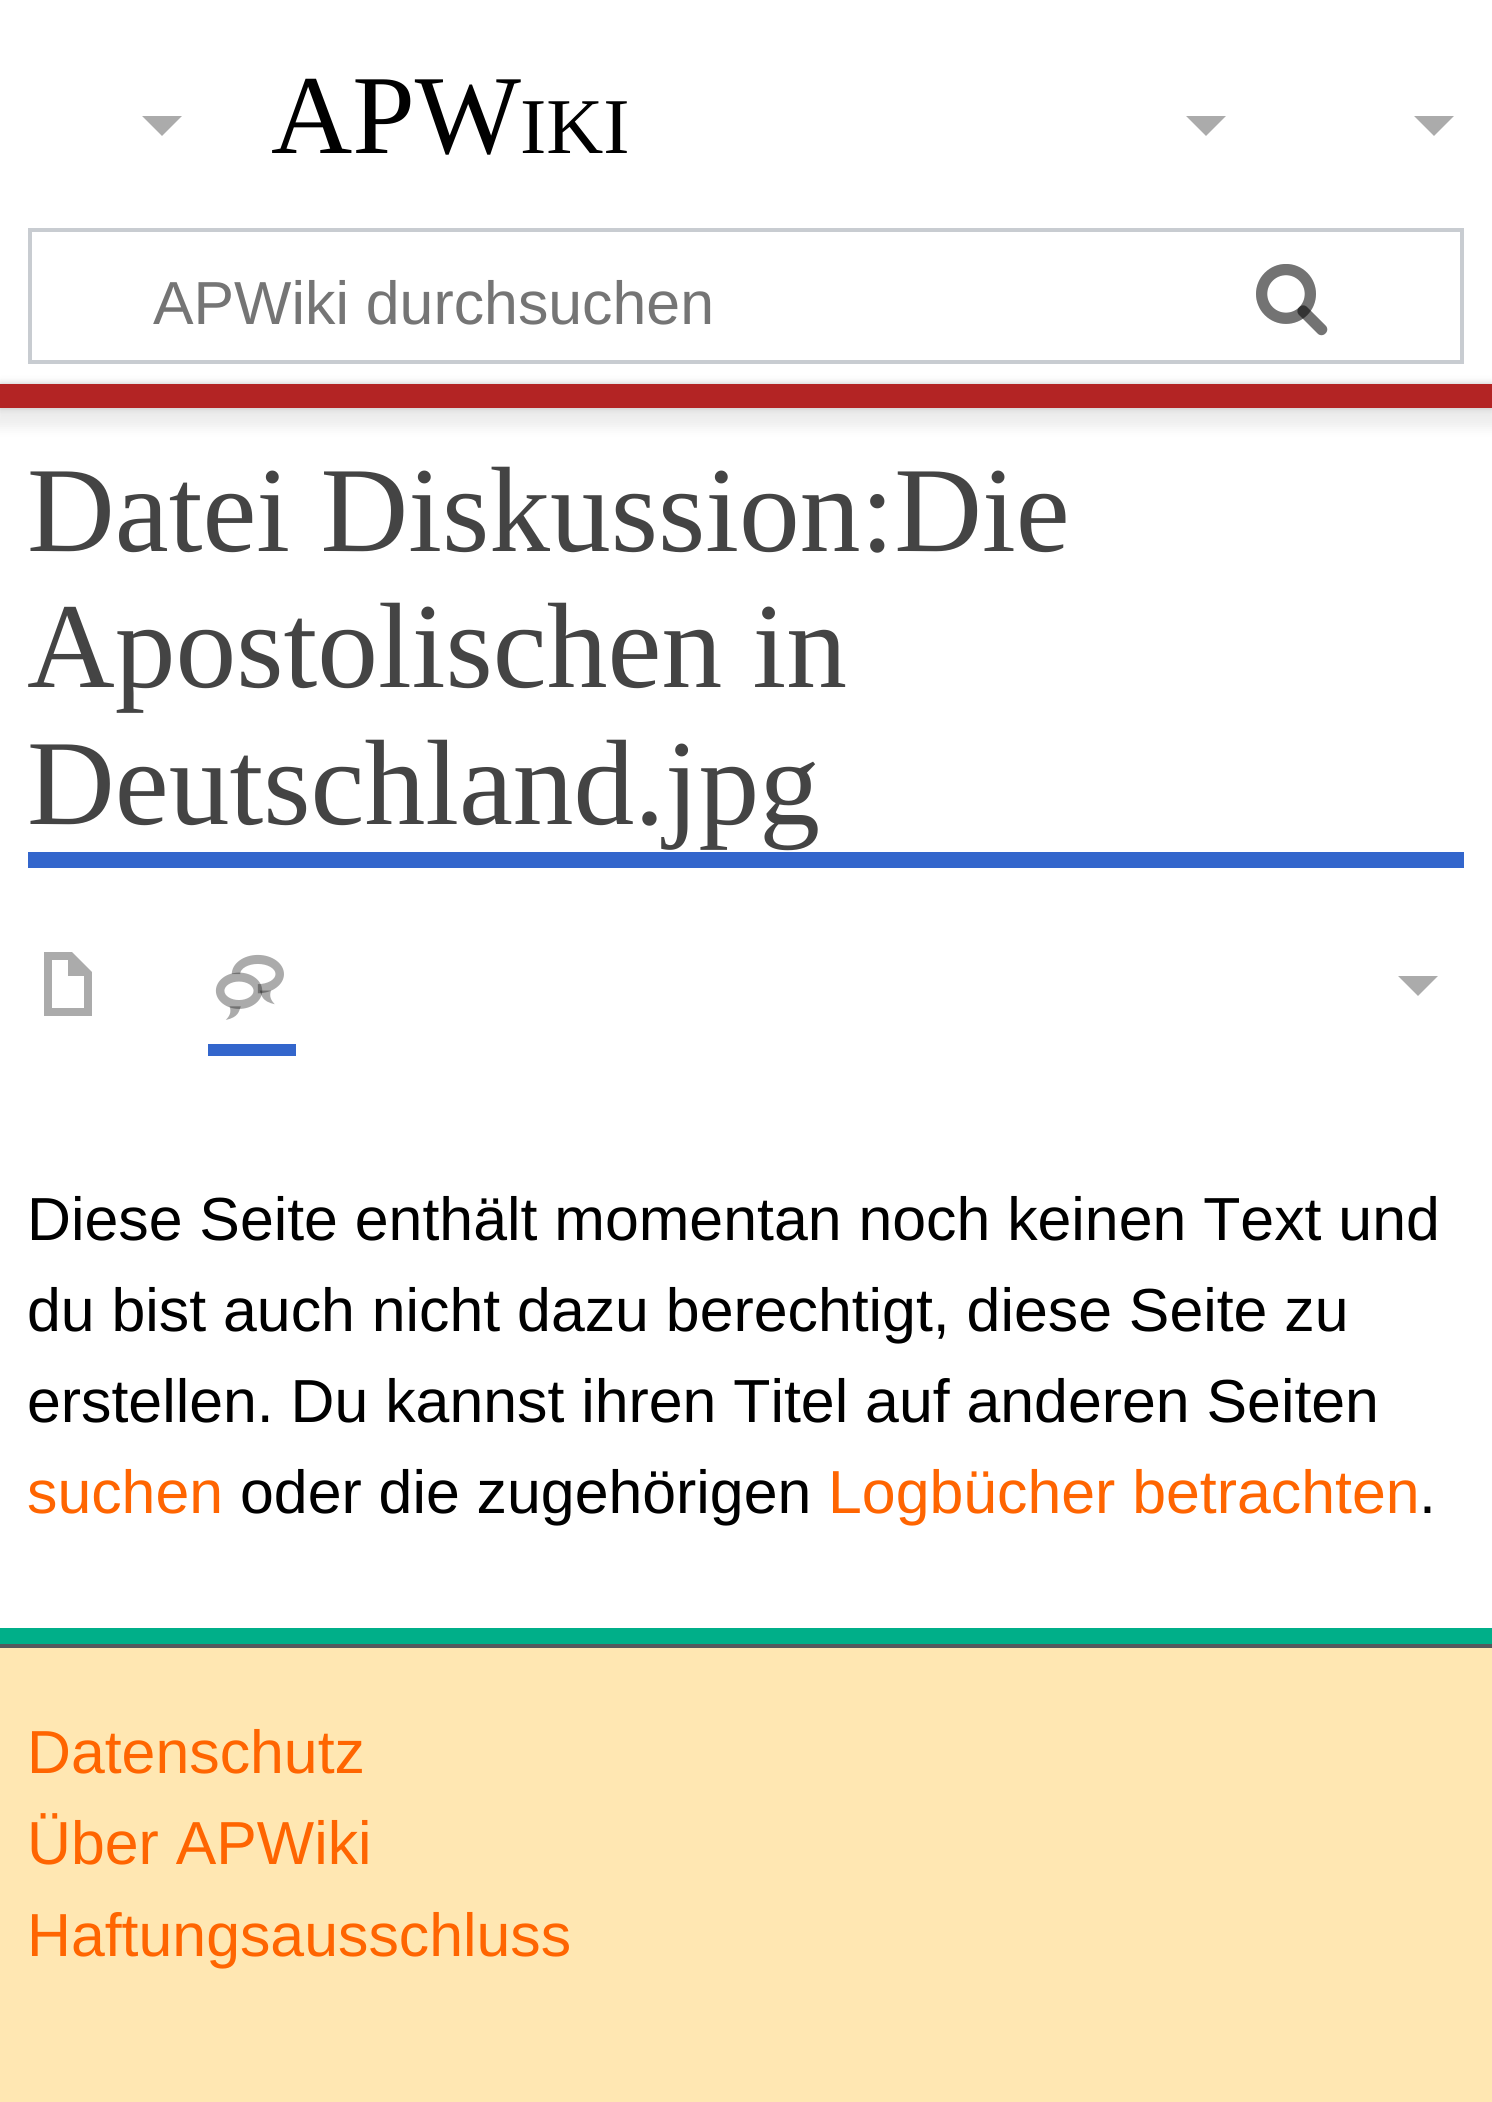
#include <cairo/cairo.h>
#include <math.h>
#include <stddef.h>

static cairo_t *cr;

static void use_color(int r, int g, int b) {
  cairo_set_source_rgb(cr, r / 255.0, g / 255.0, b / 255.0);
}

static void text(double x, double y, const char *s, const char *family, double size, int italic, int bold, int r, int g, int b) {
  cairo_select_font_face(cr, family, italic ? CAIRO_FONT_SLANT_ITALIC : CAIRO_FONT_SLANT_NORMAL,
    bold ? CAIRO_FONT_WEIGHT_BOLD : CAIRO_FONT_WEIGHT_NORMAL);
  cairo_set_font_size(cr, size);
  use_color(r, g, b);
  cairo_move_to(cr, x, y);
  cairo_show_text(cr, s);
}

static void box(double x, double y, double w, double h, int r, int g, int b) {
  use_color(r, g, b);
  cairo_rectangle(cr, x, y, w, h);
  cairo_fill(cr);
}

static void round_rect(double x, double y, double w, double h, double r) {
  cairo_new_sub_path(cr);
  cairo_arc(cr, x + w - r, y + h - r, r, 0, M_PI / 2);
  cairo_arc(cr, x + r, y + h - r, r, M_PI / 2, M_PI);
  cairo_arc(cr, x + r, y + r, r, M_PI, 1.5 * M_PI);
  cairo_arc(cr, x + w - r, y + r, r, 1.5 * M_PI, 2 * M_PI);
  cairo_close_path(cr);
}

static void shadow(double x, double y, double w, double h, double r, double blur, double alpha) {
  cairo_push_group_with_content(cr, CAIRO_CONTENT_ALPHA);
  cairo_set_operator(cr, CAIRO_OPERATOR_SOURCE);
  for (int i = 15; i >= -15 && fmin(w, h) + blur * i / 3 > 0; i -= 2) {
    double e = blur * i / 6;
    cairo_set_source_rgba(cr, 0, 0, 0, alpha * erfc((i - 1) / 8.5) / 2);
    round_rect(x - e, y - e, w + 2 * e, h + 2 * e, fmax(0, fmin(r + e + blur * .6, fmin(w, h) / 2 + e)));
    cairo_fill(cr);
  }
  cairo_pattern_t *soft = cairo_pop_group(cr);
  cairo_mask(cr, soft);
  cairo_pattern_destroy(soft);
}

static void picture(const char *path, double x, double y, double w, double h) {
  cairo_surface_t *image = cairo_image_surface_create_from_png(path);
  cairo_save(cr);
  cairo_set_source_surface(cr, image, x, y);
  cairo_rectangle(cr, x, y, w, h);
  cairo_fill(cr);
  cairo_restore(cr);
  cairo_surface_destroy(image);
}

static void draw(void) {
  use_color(255, 231, 178);
  cairo_paint(cr);
  box(0, 0, 1492, 384, 255, 255, 255);
  use_color(171, 171, 171);
  cairo_new_path(cr);
  cairo_move_to(cr, 1454, 116);
  cairo_line_to(cr, 1434, 136);
  cairo_line_to(cr, 1414, 116);
  cairo_close_path(cr);
  cairo_fill(cr);
  cairo_rectangle(cr, 30, 230, 1432, 132);
  use_color(200, 204, 209);
  cairo_set_line_width(cr, 4);
  cairo_stroke(cr);
  picture("img_01.png", 1256, 264, 72, 72);
  picture("img_02.png", 1256, 264, 72, 72);
  box(0, 408, 1492, 1220, 255, 255, 255);
  use_color(0, 0, 0);
  shadow(0, 384, 1492, 24, 0, 4, 0.2);
  shadow(-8, 388, 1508, 40, 0, 6, 0.07);
  box(0, 384, 1492, 24, 179, 36, 36);
  box(0, 1628, 1492, 16, 0, 175, 137);
  use_color(171, 171, 171);
  cairo_new_path(cr);
  cairo_move_to(cr, 182, 116);
  cairo_line_to(cr, 162, 136);
  cairo_line_to(cr, 142, 116);
  cairo_close_path(cr);
  cairo_fill(cr);
  cairo_new_path(cr);
  cairo_move_to(cr, 1226, 116);
  cairo_line_to(cr, 1206, 136);
  cairo_line_to(cr, 1186, 116);
  cairo_close_path(cr);
  cairo_fill(cr);
  box(28, 852, 1436, 16, 51, 102, 204);
  use_color(171, 171, 171);
  cairo_new_path(cr);
  cairo_move_to(cr, 44, 952);
  cairo_line_to(cr, 44, 1016);
  cairo_line_to(cr, 92, 1016);
  cairo_line_to(cr, 92, 972);
  cairo_line_to(cr, 72, 952);
  cairo_close_path(cr);
  cairo_move_to(cr, 52, 960);
  cairo_line_to(cr, 68, 960);
  cairo_line_to(cr, 68, 976);
  cairo_line_to(cr, 84, 976);
  cairo_line_to(cr, 84, 1008);
  cairo_line_to(cr, 52, 1008);
  cairo_close_path(cr);
  cairo_fill(cr);
  box(208, 1044, 88, 12, 51, 102, 204);
  picture("img_03.png", 215, 954, 69, 66);
  use_color(171, 171, 171);
  cairo_new_path(cr);
  cairo_move_to(cr, 1438, 976);
  cairo_line_to(cr, 1418, 996);
  cairo_line_to(cr, 1398, 976);
  cairo_close_path(cr);
  cairo_fill(cr);
  box(0, 1644, 1492, 4, 84, 89, 93);
  text(271, 153, "APW", "Liberation Serif", 112.5, 0, 0, 0, 0, 0);
  text(520, 153, "IKI", "Liberation Serif", 79, 0, 0, 0, 0, 0);
  text(153, 324, "APWiki durchsuchen", "Liberation Sans", 60.8, 0, 0, 117, 117, 117);
  text(27, 551, "Datei Diskussion:Die", "Liberation Serif", 121.5, 0, 0, 68, 68, 68);
  text(27, 687, "Apostolischen in", "Liberation Serif", 121.5, 0, 0, 68, 68, 68);
  text(27, 824, "Deutschland.jpg", "Liberation Serif", 121.5, 0, 0, 68, 68, 68);
  text(27, 1240, "Diese Seite enthält momentan noch keinen Text und", "Liberation Sans", 60.8, 0, 0, 0, 0, 0);
  text(27, 1331, "du bist auch nicht dazu berechtigt, diese Seite zu", "Liberation Sans", 60.8, 0, 0, 0, 0, 0);
  text(27, 1422, "erstellen. Du kannst ihren Titel auf anderen Seiten", "Liberation Sans", 60.8, 0, 0, 0, 0, 0);
  text(27, 1513, "suchen", "Liberation Sans", 60.8, 0, 0, 255, 101, 1);
  text(240, 1513, "oder die zugehörigen", "Liberation Sans", 60.8, 0, 0, 0, 0, 0);
  text(828, 1513, "Logbücher betrachten", "Liberation Sans", 60.8, 0, 0, 255, 101, 1);
  text(1419, 1513, ".", "Liberation Sans", 60.8, 0, 0, 0, 0, 0);
  text(27, 1773, "Datenschutz", "Liberation Sans", 60.8, 0, 0, 255, 101, 1);
  text(27, 1864, "Über APWiki", "Liberation Sans", 60.8, 0, 0, 255, 101, 1);
  text(27, 1956, "Haftungsausschluss", "Liberation Sans", 60.8, 0, 0, 255, 101, 1);
}

int main(void) {
  cairo_surface_t *surface = cairo_image_surface_create(CAIRO_FORMAT_RGB24, 1492, 2102);
  cr = cairo_create(surface);
  cairo_font_options_t *options = cairo_font_options_create();
  cairo_font_options_set_hint_metrics(options, CAIRO_HINT_METRICS_OFF);
  cairo_font_options_set_hint_style(options, CAIRO_HINT_STYLE_NONE);
  cairo_set_font_options(cr, options);
  cairo_set_miter_limit(cr, 4);
  draw();
  cairo_surface_write_to_png(surface, "out.png");
  cairo_font_options_destroy(options);
  cairo_destroy(cr);
  cairo_surface_destroy(surface);
  return 0;
}
